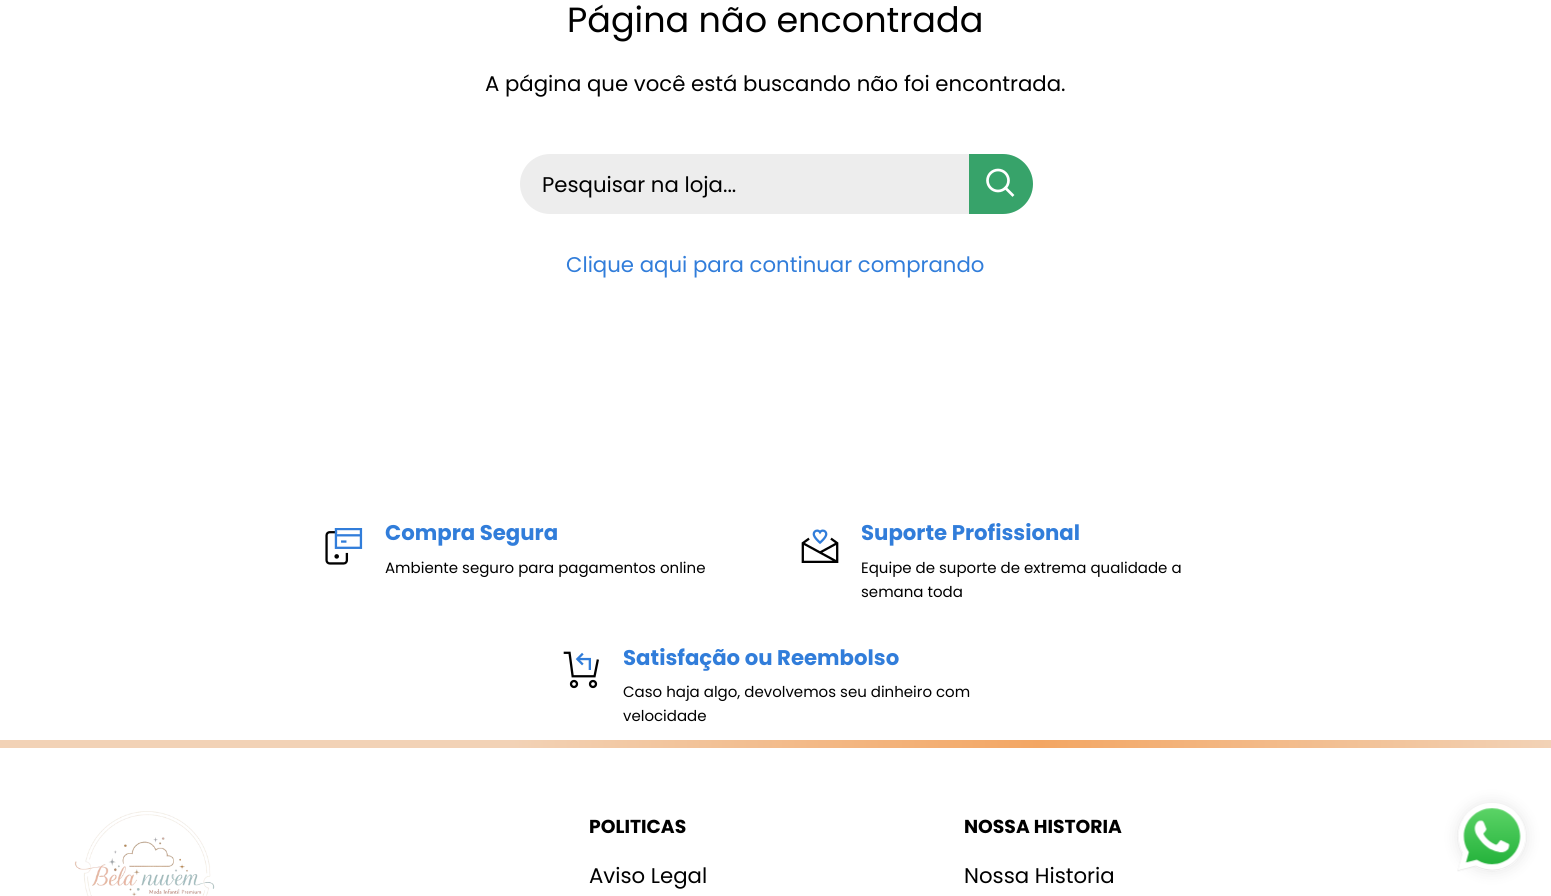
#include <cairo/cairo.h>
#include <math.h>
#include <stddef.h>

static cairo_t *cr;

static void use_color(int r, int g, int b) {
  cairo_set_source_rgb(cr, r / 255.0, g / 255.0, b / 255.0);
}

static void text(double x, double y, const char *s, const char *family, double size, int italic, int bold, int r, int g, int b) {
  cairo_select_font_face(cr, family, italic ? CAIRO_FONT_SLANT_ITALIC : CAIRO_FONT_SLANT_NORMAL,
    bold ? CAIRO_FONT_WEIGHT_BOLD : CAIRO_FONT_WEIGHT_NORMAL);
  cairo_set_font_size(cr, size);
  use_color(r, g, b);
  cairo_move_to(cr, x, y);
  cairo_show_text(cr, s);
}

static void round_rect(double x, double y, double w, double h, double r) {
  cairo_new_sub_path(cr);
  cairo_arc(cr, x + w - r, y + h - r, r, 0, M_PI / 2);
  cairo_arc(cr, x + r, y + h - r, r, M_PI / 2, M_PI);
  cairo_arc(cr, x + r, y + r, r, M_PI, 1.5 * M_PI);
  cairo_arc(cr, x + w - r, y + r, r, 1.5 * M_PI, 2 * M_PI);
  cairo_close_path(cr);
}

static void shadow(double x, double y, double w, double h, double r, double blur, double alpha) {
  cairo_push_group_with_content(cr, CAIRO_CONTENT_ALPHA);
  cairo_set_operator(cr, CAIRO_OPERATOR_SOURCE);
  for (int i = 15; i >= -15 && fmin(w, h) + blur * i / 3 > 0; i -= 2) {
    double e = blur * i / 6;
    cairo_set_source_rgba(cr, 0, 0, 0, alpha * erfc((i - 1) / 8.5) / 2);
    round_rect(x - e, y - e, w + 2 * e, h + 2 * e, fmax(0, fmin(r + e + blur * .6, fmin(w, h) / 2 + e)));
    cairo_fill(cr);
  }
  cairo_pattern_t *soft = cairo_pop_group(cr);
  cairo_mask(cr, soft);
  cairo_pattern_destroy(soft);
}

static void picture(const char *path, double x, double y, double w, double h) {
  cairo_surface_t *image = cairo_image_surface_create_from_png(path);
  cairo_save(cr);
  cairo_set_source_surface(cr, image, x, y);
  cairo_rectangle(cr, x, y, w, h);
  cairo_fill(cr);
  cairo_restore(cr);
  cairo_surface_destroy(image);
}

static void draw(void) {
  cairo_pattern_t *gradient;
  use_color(255, 255, 255);
  cairo_paint(cr);
  use_color(237, 237, 237);
  cairo_new_path(cr);
  cairo_move_to(cr, 550, 154);
  cairo_line_to(cr, 969, 154);
  cairo_line_to(cr, 969, 214);
  cairo_line_to(cr, 550, 214);
  cairo_curve_to(cr, 533.5, 214, 520, 200.5, 520, 184);
  cairo_curve_to(cr, 520, 167.5, 533.5, 154, 550, 154);
  cairo_close_path(cr);
  cairo_fill(cr);
  use_color(55, 163, 106);
  cairo_new_path(cr);
  cairo_move_to(cr, 969, 154);
  cairo_line_to(cr, 1003, 154);
  cairo_curve_to(cr, 1019.5, 154, 1033, 167.5, 1033, 184);
  cairo_curve_to(cr, 1033, 200.5, 1019.5, 214, 1003, 214);
  cairo_line_to(cr, 969, 214);
  cairo_close_path(cr);
  cairo_fill(cr);
  cairo_new_path(cr);
  cairo_move_to(cr, 1012.5, 195);
  cairo_line_to(cr, 1005.5, 188);
  use_color(255, 255, 255);
  cairo_set_line_width(cr, 2.7);
  cairo_set_line_cap(cr, CAIRO_LINE_CAP_SQUARE);
  cairo_stroke(cr);
  cairo_arc(cr, 998, 180.5, 10.5, 0, 2 * M_PI);
  cairo_set_line_cap(cr, CAIRO_LINE_CAP_BUTT);
  cairo_stroke(cr);
  picture("img_01.png", 325, 528, 38, 37);
  picture("img_02.png", 801, 529, 38, 34);
  picture("img_03.png", 563, 651, 36, 38);
  gradient = cairo_pattern_create_linear(0, 744, 1551, 744);
  cairo_pattern_add_color_stop_rgba(gradient, 0, 0.949, 0.824, 0.714, 1);
  cairo_pattern_add_color_stop_rgba(gradient, 0.33, 0.949, 0.824, 0.714, 1);
  cairo_pattern_add_color_stop_rgba(gradient, 0.67, 0.953, 0.651, 0.388, 1);
  cairo_pattern_add_color_stop_rgba(gradient, 1, 0.949, 0.824, 0.714, 1);
  cairo_set_source(cr, gradient);
  cairo_pattern_destroy(gradient);
  cairo_rectangle(cr, 0, 740, 1551, 8);
  cairo_fill(cr);
  picture("img_04.png", 74, 811, 141, 85);
  cairo_save(cr);
  cairo_set_fill_rule(cr, CAIRO_FILL_RULE_EVEN_ODD);
  cairo_new_path(cr);
  cairo_move_to(cr, 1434, 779);
  cairo_line_to(cr, 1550, 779);
  cairo_line_to(cr, 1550, 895);
  cairo_line_to(cr, 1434, 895);
  cairo_close_path(cr);
  cairo_move_to(cr, 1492, 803);
  cairo_curve_to(cr, 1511, 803, 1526, 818, 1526, 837);
  cairo_curve_to(cr, 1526, 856, 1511, 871, 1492, 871);
  cairo_curve_to(cr, 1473, 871, 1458, 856, 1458, 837);
  cairo_curve_to(cr, 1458, 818, 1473, 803, 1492, 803);
  cairo_close_path(cr);
  cairo_clip(cr);
  use_color(0, 0, 0);
  shadow(1458, 803, 68, 68, 34, 7.5, 0.1);
  cairo_restore(cr);
  picture("img_05.png", 1457, 808, 70, 64);
  text(567, 32, "Página não encontrada", "Poppins", 35, 0, 0, 0, 0, 0);
  text(485, 91, "A página que você está buscando não foi encontrada.", "Poppins", 21.25, 0, 0, 0, 0, 0);
  text(542, 192, "Pesquisar na loja...", "Poppins", 21.25, 0, 0, 0, 0, 0);
  text(566, 272, "Clique aqui para continuar comprando", "Poppins", 21.25, 0, 0, 49, 125, 218);
  text(385, 540, "Compra Segura", "Poppins", 21.25, 0, 1, 49, 125, 218);
  text(385, 573, "Ambiente seguro para pagamentos online", "Poppins", 15, 0, 0, 0, 0, 0);
  text(861, 540, "Suporte Profissional", "Poppins", 21.25, 0, 1, 49, 125, 218);
  text(861, 573, "Equipe de suporte de extrema qualidade a", "Poppins", 15, 0, 0, 0, 0, 0);
  text(861, 597, "semana toda", "Poppins", 15, 0, 0, 0, 0, 0);
  text(623, 665, "Satisfação ou Reembolso", "Poppins", 21.25, 0, 1, 49, 125, 218);
  text(623, 697, "Caso haja algo, devolvemos seu dinheiro com", "Poppins", 15, 0, 0, 0, 0, 0);
  text(623, 721, "velocidade", "Poppins", 15, 0, 0, 0, 0, 0);
  text(589, 833, "POLITICAS", "Poppins", 18.75, 0, 1, 0, 0, 0);
  text(589, 883, "Aviso Legal", "Poppins", 21.25, 0, 0, 0, 0, 0);
  text(964, 833, "NOSSA HISTORIA", "Poppins", 18.75, 0, 1, 0, 0, 0);
  text(964, 883, "Nossa Historia", "Poppins", 21.25, 0, 0, 0, 0, 0);
}

int main(void) {
  cairo_surface_t *surface = cairo_image_surface_create(CAIRO_FORMAT_RGB24, 1551, 896);
  cr = cairo_create(surface);
  cairo_font_options_t *options = cairo_font_options_create();
  cairo_font_options_set_hint_metrics(options, CAIRO_HINT_METRICS_OFF);
  cairo_font_options_set_hint_style(options, CAIRO_HINT_STYLE_NONE);
  cairo_set_font_options(cr, options);
  cairo_set_miter_limit(cr, 4);
  draw();
  cairo_surface_write_to_png(surface, "out.png");
  cairo_font_options_destroy(options);
  cairo_destroy(cr);
  cairo_surface_destroy(surface);
  return 0;
}
